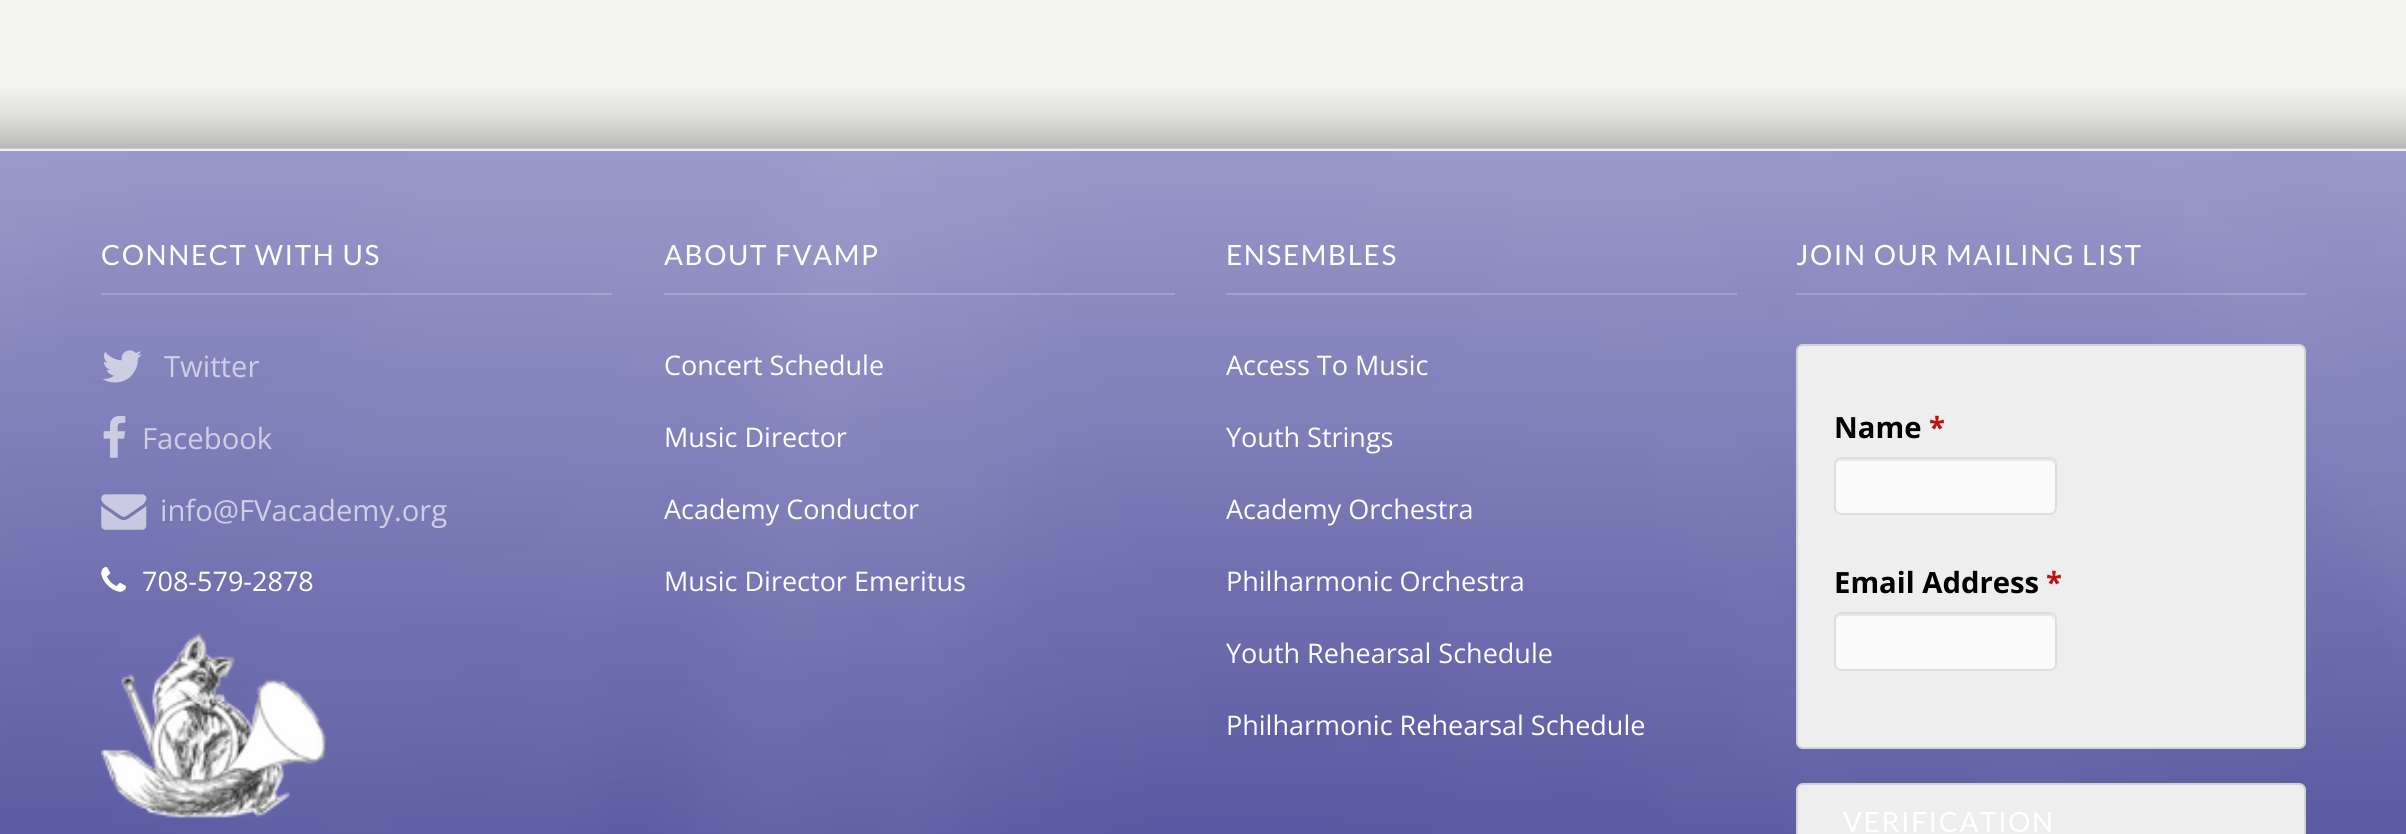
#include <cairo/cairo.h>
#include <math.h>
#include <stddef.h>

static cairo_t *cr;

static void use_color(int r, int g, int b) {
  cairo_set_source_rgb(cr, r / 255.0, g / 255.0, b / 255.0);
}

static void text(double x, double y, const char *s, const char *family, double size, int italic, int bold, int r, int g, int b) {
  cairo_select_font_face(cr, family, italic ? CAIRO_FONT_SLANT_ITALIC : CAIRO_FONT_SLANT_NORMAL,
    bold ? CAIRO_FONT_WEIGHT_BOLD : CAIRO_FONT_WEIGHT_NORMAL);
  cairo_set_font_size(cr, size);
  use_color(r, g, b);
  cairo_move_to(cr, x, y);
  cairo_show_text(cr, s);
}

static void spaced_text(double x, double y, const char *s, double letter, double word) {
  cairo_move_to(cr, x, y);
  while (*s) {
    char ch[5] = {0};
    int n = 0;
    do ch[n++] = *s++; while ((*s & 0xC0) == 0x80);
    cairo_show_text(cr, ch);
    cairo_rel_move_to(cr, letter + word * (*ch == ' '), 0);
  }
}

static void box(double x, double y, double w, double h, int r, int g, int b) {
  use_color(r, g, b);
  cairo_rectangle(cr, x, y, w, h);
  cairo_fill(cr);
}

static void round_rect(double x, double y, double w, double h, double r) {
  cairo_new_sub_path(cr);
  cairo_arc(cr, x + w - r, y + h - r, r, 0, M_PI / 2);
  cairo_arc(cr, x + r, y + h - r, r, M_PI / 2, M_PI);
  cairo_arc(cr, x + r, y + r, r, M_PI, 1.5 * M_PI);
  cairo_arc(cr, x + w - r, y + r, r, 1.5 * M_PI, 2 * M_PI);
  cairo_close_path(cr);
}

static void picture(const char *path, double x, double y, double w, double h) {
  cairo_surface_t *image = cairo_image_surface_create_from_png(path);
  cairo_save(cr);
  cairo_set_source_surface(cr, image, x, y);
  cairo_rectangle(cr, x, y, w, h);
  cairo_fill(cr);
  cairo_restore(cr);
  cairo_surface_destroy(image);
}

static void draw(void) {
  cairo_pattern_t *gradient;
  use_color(244, 244, 242);
  cairo_paint(cr);
  picture("img_01.png", 0, 88, 2406, 62);
  gradient = cairo_pattern_create_linear(1204, 151, 1204, 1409);
  cairo_pattern_add_color_stop_rgba(gradient, 0, 0.592, 0.592, 0.788, 1);
  cairo_pattern_add_color_stop_rgba(gradient, 0.64, 0.278, 0.278, 0.588, 1);
  cairo_set_source(cr, gradient);
  cairo_pattern_destroy(gradient);
  cairo_rectangle(cr, 0, 151, 2406, 683);
  cairo_fill(cr);
  picture("img_02.png", 0, 151, 2406, 683);
  cairo_set_source_rgba(cr, 1, 1, 1, 0.2);
  cairo_rectangle(cr, 101, 293, 511, 2);
  cairo_fill(cr);
  picture("img_03.png", 102, 350, 40, 33);
  picture("img_04.png", 103, 415, 23, 43);
  picture("img_05.png", 101, 494, 46, 36);
  picture("img_06.png", 101, 567, 25, 25);
  picture("img_07.png", 101, 632, 226, 187);
  cairo_rectangle(cr, 664, 293, 511, 2);
  cairo_fill(cr);
  box(1226, 293, 511, 2, 163, 163, 206);
  cairo_set_source_rgba(cr, 1, 1, 1, 0.2);
  cairo_rectangle(cr, 1796, 293, 510, 2);
  cairo_fill(cr);
  use_color(238, 238, 238);
  round_rect(1797, 345, 508, 403, 6);
  cairo_fill_preserve(cr);
  use_color(211, 211, 211);
  cairo_stroke(cr);
  use_color(250, 250, 250);
  round_rect(1834, 457, 223, 58, 7);
  cairo_fill(cr);
  use_color(231, 231, 231);
  cairo_new_path(cr);
  cairo_move_to(cr, 1840, 461);
  cairo_line_to(cr, 2050, 461);
  cairo_curve_to(cr, 2052, 461, 2054, 463, 2054, 466);
  cairo_line_to(cr, 2054, 464);
  cairo_curve_to(cr, 2054, 461, 2052, 459, 2049, 459);
  cairo_line_to(cr, 1841, 459);
  cairo_curve_to(cr, 1838, 459, 1836, 461, 1836, 464);
  cairo_line_to(cr, 1836, 466);
  cairo_curve_to(cr, 1836, 463, 1838, 461, 1840, 461);
  cairo_close_path(cr);
  cairo_fill(cr);
  round_rect(1835, 458, 221, 56, 6);
  use_color(221, 221, 221);
  cairo_stroke(cr);
  use_color(250, 250, 250);
  round_rect(1834, 612, 223, 59, 7);
  cairo_fill(cr);
  use_color(231, 231, 231);
  cairo_new_path(cr);
  cairo_move_to(cr, 1840, 616);
  cairo_line_to(cr, 2050, 616);
  cairo_curve_to(cr, 2052, 616, 2054, 619, 2054, 621);
  cairo_line_to(cr, 2054, 619);
  cairo_curve_to(cr, 2054, 616, 2052, 614, 2049, 614);
  cairo_line_to(cr, 1841, 614);
  cairo_curve_to(cr, 1838, 614, 1836, 616, 1836, 619);
  cairo_line_to(cr, 1836, 621);
  cairo_curve_to(cr, 1836, 619, 1838, 616, 1840, 616);
  cairo_close_path(cr);
  cairo_fill(cr);
  round_rect(1835, 613, 221, 57, 6);
  use_color(221, 221, 221);
  cairo_stroke(cr);
  use_color(238, 238, 238);
  round_rect(1797, 784, 508, 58, 6);
  cairo_fill_preserve(cr);
  use_color(211, 211, 211);
  cairo_stroke(cr);
  cairo_select_font_face(cr, "Lato", CAIRO_FONT_SLANT_NORMAL, CAIRO_FONT_WEIGHT_NORMAL);
  cairo_set_font_size(cr, 27.9);
  use_color(255, 255, 255);
  spaced_text(101, 265, "CONNECT WITH US", 1.6, 0);
  text(164, 377, "Twitter", "Open Sans", 29.25, 0, 0, 206, 206, 228);
  text(142, 449, "Facebook", "Open Sans", 29.25, 0, 0, 206, 206, 228);
  text(160, 521, "info@FVacademy.org", "Open Sans", 29.25, 0, 0, 206, 206, 228);
  text(142, 591, "708-579-2878", "Open Sans", 27, 0, 0, 255, 255, 255);
  cairo_select_font_face(cr, "Lato", CAIRO_FONT_SLANT_NORMAL, CAIRO_FONT_WEIGHT_NORMAL);
  cairo_set_font_size(cr, 27.9);
  spaced_text(664, 265, "ABOUT FVAMP", 1.6, 0);
  text(664, 375, "Concert Schedule", "Open Sans", 27, 0, 0, 255, 255, 255);
  text(664, 447, "Music Director", "Open Sans", 27, 0, 0, 255, 255, 255);
  text(664, 519, "Academy Conductor", "Open Sans", 27, 0, 0, 255, 255, 255);
  text(664, 591, "Music Director Emeritus", "Open Sans", 27, 0, 0, 255, 255, 255);
  cairo_select_font_face(cr, "Lato", CAIRO_FONT_SLANT_NORMAL, CAIRO_FONT_WEIGHT_NORMAL);
  cairo_set_font_size(cr, 27.9);
  spaced_text(1226, 265, "ENSEMBLES", 1.6, 0);
  text(1226, 375, "Access To Music", "Open Sans", 27, 0, 0, 255, 255, 255);
  text(1226, 447, "Youth Strings", "Open Sans", 27, 0, 0, 255, 255, 255);
  text(1226, 519, "Academy Orchestra", "Open Sans", 27, 0, 0, 255, 255, 255);
  text(1226, 591, "Philharmonic Orchestra", "Open Sans", 27, 0, 0, 255, 255, 255);
  text(1226, 663, "Youth Rehearsal Schedule", "Open Sans", 27, 0, 0, 255, 255, 255);
  text(1226, 735, "Philharmonic Rehearsal Schedule", "Open Sans", 27, 0, 0, 255, 255, 255);
  cairo_select_font_face(cr, "Lato", CAIRO_FONT_SLANT_NORMAL, CAIRO_FONT_WEIGHT_NORMAL);
  cairo_set_font_size(cr, 27.9);
  spaced_text(1796, 265, "JOIN OUR MAILING LIST", 1.6, 0);
  text(1834, 438, "Name", "Open Sans", 29.25, 0, 1, 0, 0, 0);
  text(1929, 438, "*", "Open Sans", 29.25, 0, 1, 188, 18, 18);
  text(1834, 593, "Email Address", "Open Sans", 29.25, 0, 1, 0, 0, 0);
  text(2046, 593, "*", "Open Sans", 29.25, 0, 1, 188, 18, 18);
  cairo_select_font_face(cr, "Lato", CAIRO_FONT_SLANT_NORMAL, CAIRO_FONT_WEIGHT_NORMAL);
  cairo_set_font_size(cr, 27.9);
  use_color(255, 255, 255);
  spaced_text(1843, 832, "VERIFICATION", 1.6, 0);
}

int main(void) {
  cairo_surface_t *surface = cairo_image_surface_create(CAIRO_FORMAT_RGB24, 2406, 834);
  cr = cairo_create(surface);
  cairo_font_options_t *options = cairo_font_options_create();
  cairo_font_options_set_hint_metrics(options, CAIRO_HINT_METRICS_OFF);
  cairo_font_options_set_hint_style(options, CAIRO_HINT_STYLE_NONE);
  cairo_set_font_options(cr, options);
  cairo_set_miter_limit(cr, 4);
  draw();
  cairo_surface_write_to_png(surface, "out.png");
  cairo_font_options_destroy(options);
  cairo_destroy(cr);
  cairo_surface_destroy(surface);
  return 0;
}
